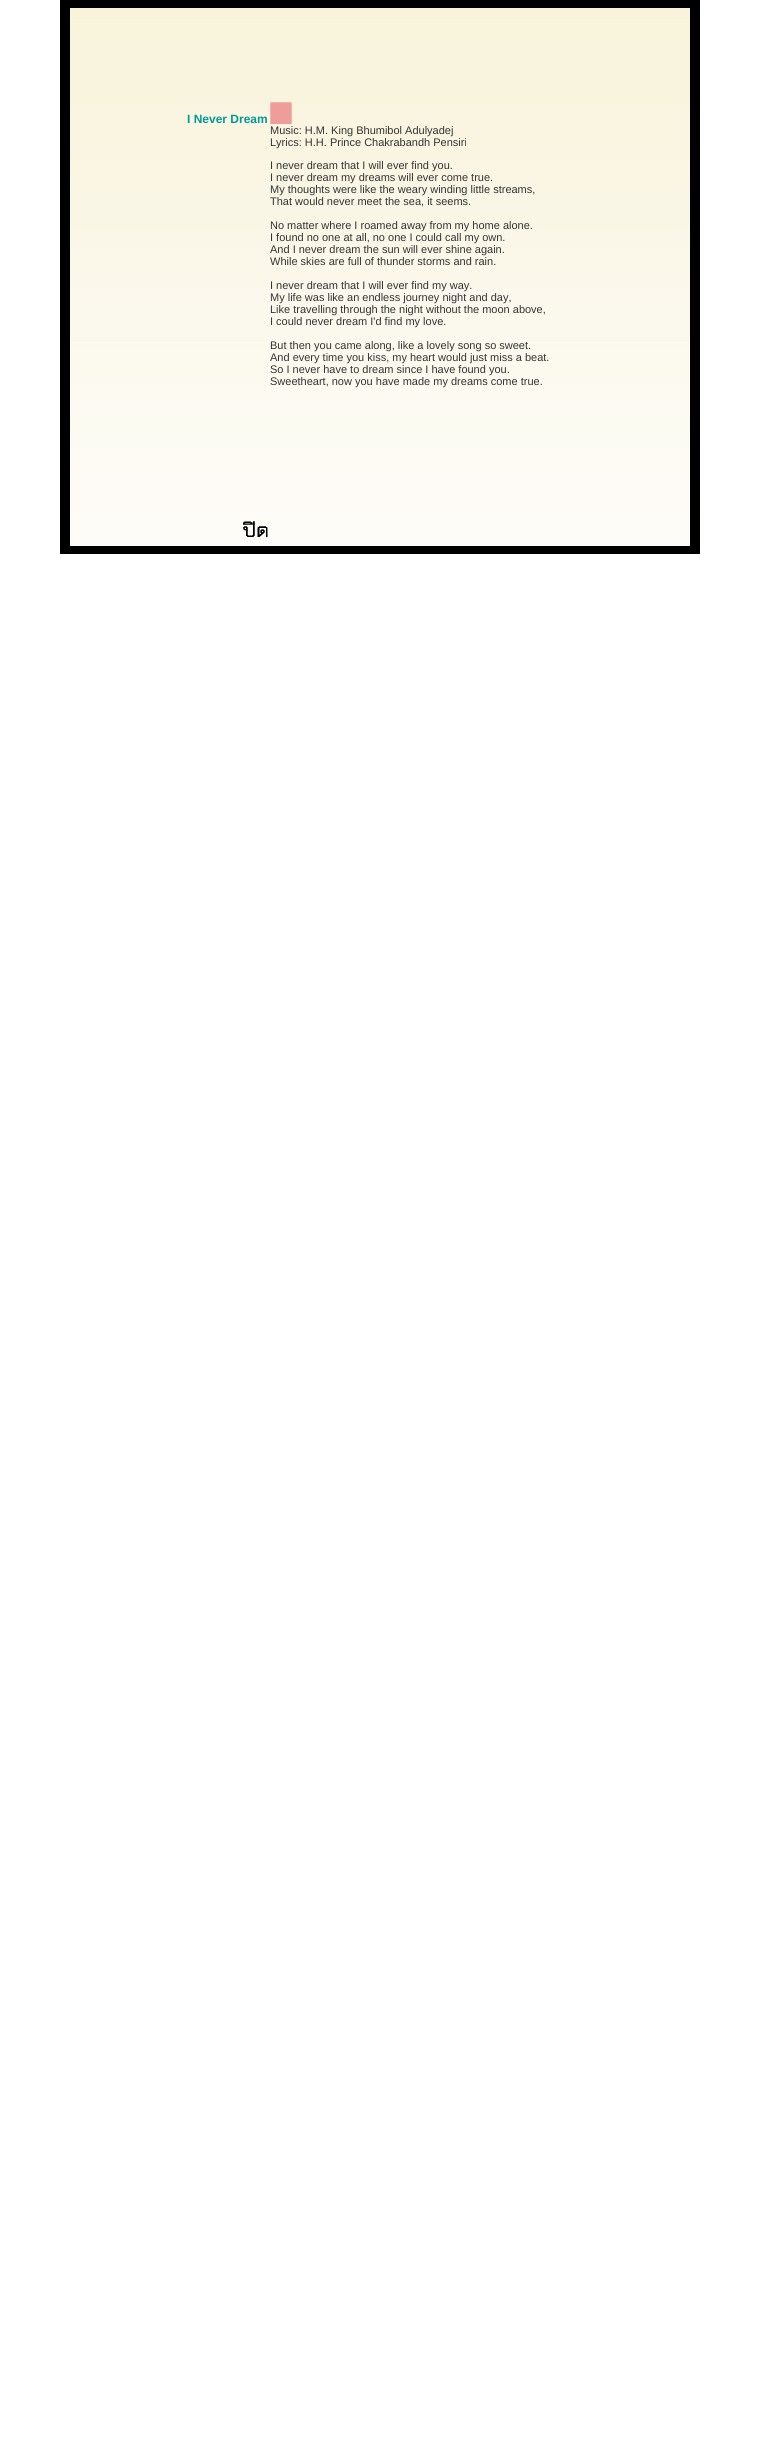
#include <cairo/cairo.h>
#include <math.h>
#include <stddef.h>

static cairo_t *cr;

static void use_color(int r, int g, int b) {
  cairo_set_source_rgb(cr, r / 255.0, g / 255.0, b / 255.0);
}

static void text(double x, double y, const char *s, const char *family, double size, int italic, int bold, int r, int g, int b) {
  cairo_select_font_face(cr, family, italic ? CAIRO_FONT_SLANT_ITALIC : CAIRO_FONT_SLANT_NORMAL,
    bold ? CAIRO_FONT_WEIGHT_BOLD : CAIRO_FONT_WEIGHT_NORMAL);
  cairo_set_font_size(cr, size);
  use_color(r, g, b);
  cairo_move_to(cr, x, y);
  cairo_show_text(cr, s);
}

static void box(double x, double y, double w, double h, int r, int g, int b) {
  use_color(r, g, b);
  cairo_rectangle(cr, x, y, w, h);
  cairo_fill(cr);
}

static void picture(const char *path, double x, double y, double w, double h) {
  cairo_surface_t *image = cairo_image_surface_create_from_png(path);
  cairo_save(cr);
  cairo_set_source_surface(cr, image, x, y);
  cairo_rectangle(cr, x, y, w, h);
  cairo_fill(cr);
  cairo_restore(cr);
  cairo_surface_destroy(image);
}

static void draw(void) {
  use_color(255, 255, 255);
  cairo_paint(cr);
  box(60, 0, 640, 554, 0, 0, 0);
  picture("img_01.png", 70, 8, 620, 538);
  picture("img_02.png", 243, 521, 25, 16);
  picture("img_03.png", 270, 102, 22, 22);
  text(187, 123, "I Never Dream", "Liberation Sans", 12, 0, 1, 0, 153, 153);
  text(270, 134, "Music: H.M. King Bhumibol Adulyadej", "Liberation Sans", 11, 0, 0, 51, 51, 51);
  text(270, 146, "Lyrics: H.H. Prince Chakrabandh Pensiri", "Liberation Sans", 11, 0, 0, 51, 51, 51);
  text(270, 169, "I never dream that I will ever find you.", "Liberation Sans", 11, 0, 0, 51, 51, 51);
  text(270, 181, "I never dream my dreams will ever come true.", "Liberation Sans", 11, 0, 0, 51, 51, 51);
  text(270, 193, "My thoughts were like the weary winding little streams,", "Liberation Sans", 11, 0, 0, 51, 51, 51);
  text(270, 205, "That would never meet the sea, it seems.", "Liberation Sans", 11, 0, 0, 51, 51, 51);
  text(270, 229, "No matter where I roamed away from my home alone.", "Liberation Sans", 11, 0, 0, 51, 51, 51);
  text(270, 241, "I found no one at all, no one I could call my own.", "Liberation Sans", 11, 0, 0, 51, 51, 51);
  text(270, 253, "And I never dream the sun will ever shine again.", "Liberation Sans", 11, 0, 0, 51, 51, 51);
  text(270, 265, "While skies are full of thunder storms and rain.", "Liberation Sans", 11, 0, 0, 51, 51, 51);
  text(270, 289, "I never dream that I will ever find my way.", "Liberation Sans", 11, 0, 0, 51, 51, 51);
  text(270, 301, "My life was like an endless journey night and day,", "Liberation Sans", 11, 0, 0, 51, 51, 51);
  text(270, 313, "Like travelling through the night without the moon above,", "Liberation Sans", 11, 0, 0, 51, 51, 51);
  text(270, 325, "I could never dream I'd find my love.", "Liberation Sans", 11, 0, 0, 51, 51, 51);
  text(270, 349, "But then you came along, like a lovely song so sweet.", "Liberation Sans", 11, 0, 0, 51, 51, 51);
  text(270, 361, "And every time you kiss, my heart would just miss a beat.", "Liberation Sans", 11, 0, 0, 51, 51, 51);
  text(270, 373, "So I never have to dream since I have found you.", "Liberation Sans", 11, 0, 0, 51, 51, 51);
  text(270, 385, "Sweetheart, now you have made my dreams come true.", "Liberation Sans", 11, 0, 0, 51, 51, 51);
}

int main(void) {
  cairo_surface_t *surface = cairo_image_surface_create(CAIRO_FORMAT_RGB24, 760, 2461);
  cr = cairo_create(surface);
  cairo_font_options_t *options = cairo_font_options_create();
  cairo_font_options_set_hint_metrics(options, CAIRO_HINT_METRICS_OFF);
  cairo_font_options_set_hint_style(options, CAIRO_HINT_STYLE_NONE);
  cairo_set_font_options(cr, options);
  cairo_set_miter_limit(cr, 4);
  draw();
  cairo_surface_write_to_png(surface, "out.png");
  cairo_font_options_destroy(options);
  cairo_destroy(cr);
  cairo_surface_destroy(surface);
  return 0;
}
